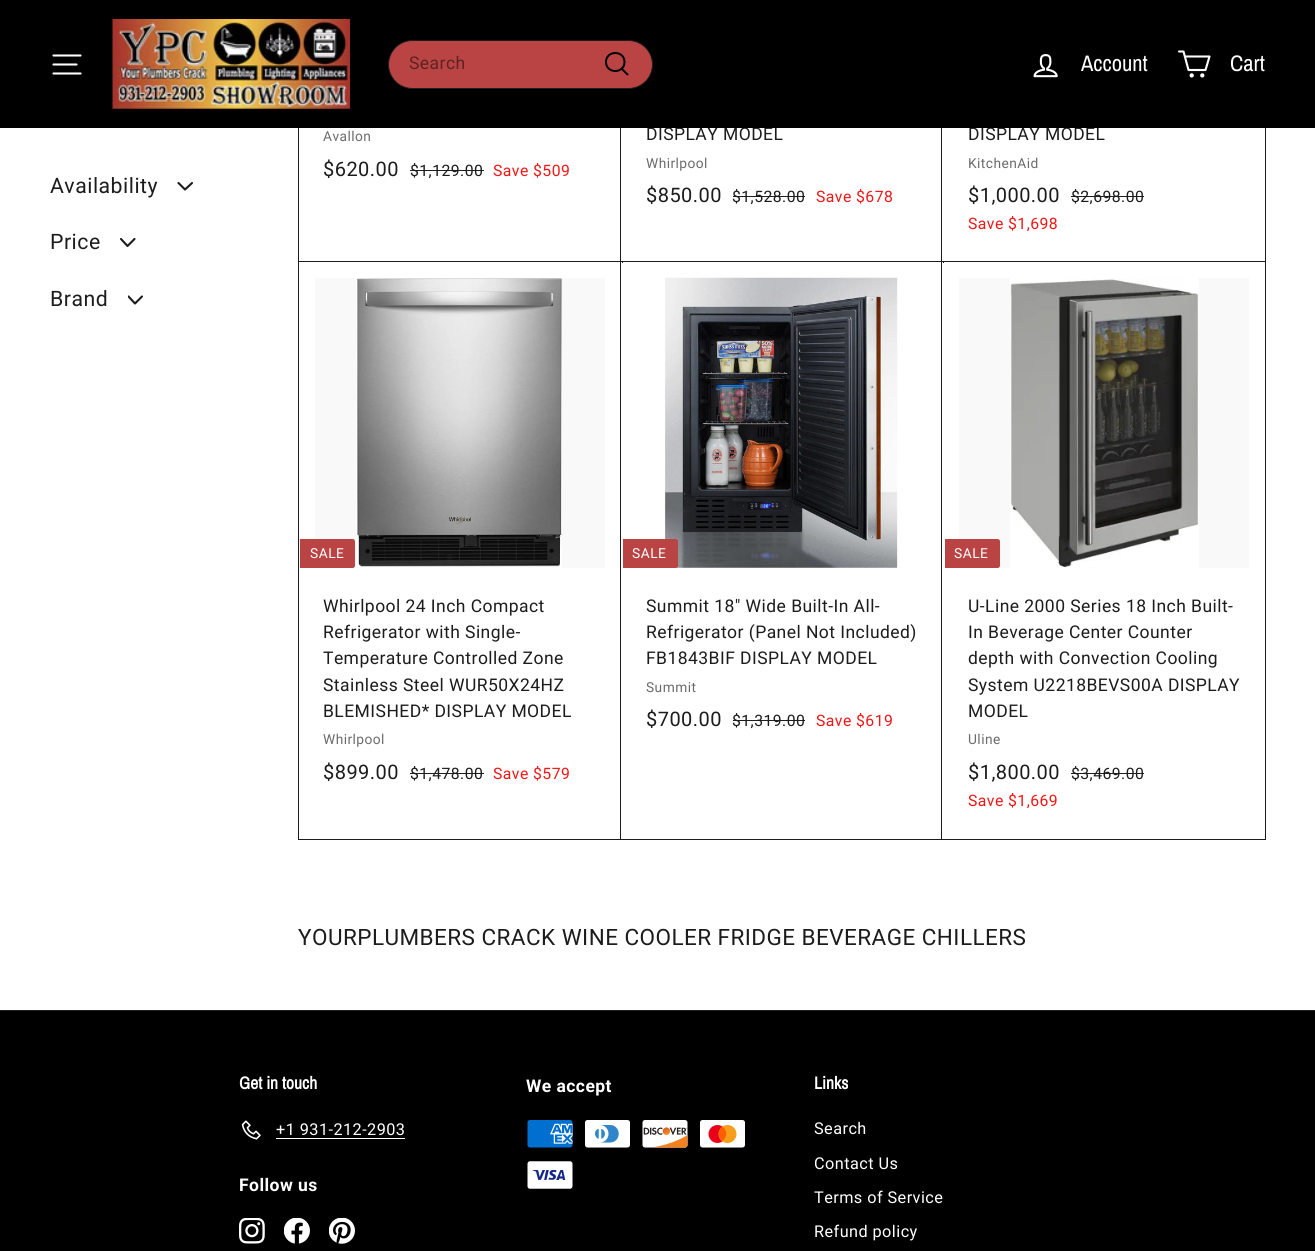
#include <cairo/cairo.h>
#include <math.h>
#include <stddef.h>

static cairo_t *cr;

static void use_color(int r, int g, int b) {
  cairo_set_source_rgb(cr, r / 255.0, g / 255.0, b / 255.0);
}

static void text(double x, double y, const char *s, const char *family, double size, int italic, int bold, int r, int g, int b) {
  cairo_select_font_face(cr, family, italic ? CAIRO_FONT_SLANT_ITALIC : CAIRO_FONT_SLANT_NORMAL,
    bold ? CAIRO_FONT_WEIGHT_BOLD : CAIRO_FONT_WEIGHT_NORMAL);
  cairo_set_font_size(cr, size);
  use_color(r, g, b);
  cairo_move_to(cr, x, y);
  cairo_show_text(cr, s);
}

static void spaced_text(double x, double y, const char *s, double letter, double word) {
  cairo_move_to(cr, x, y);
  while (*s) {
    char ch[5] = {0};
    int n = 0;
    do ch[n++] = *s++; while ((*s & 0xC0) == 0x80);
    cairo_show_text(cr, ch);
    cairo_rel_move_to(cr, letter + word * (*ch == ' '), 0);
  }
}

static void box(double x, double y, double w, double h, int r, int g, int b) {
  use_color(r, g, b);
  cairo_rectangle(cr, x, y, w, h);
  cairo_fill(cr);
}

static void round_rect(double x, double y, double w, double h, double r) {
  cairo_new_sub_path(cr);
  cairo_arc(cr, x + w - r, y + h - r, r, 0, M_PI / 2);
  cairo_arc(cr, x + r, y + h - r, r, M_PI / 2, M_PI);
  cairo_arc(cr, x + r, y + r, r, M_PI, 1.5 * M_PI);
  cairo_arc(cr, x + w - r, y + r, r, 1.5 * M_PI, 2 * M_PI);
  cairo_close_path(cr);
}

static void picture(const char *path, double x, double y, double w, double h) {
  cairo_surface_t *image = cairo_image_surface_create_from_png(path);
  cairo_save(cr);
  cairo_set_source_surface(cr, image, x, y);
  cairo_rectangle(cr, x, y, w, h);
  cairo_fill(cr);
  cairo_restore(cr);
  cairo_surface_destroy(image);
}

static void draw(void) {
  use_color(255, 255, 255);
  cairo_paint(cr);
  cairo_new_path(cr);
  cairo_move_to(cr, 178.5, 183);
  cairo_line_to(cr, 185, 189.5);
  cairo_line_to(cr, 192, 183);
  use_color(28, 28, 28);
  cairo_set_line_width(cr, 2.1);
  cairo_set_line_cap(cr, CAIRO_LINE_CAP_ROUND);
  cairo_set_line_join(cr, CAIRO_LINE_JOIN_ROUND);
  cairo_stroke(cr);
  cairo_new_path(cr);
  cairo_move_to(cr, 121, 239);
  cairo_line_to(cr, 127.5, 246);
  cairo_line_to(cr, 134.5, 239);
  cairo_stroke(cr);
  cairo_save(cr);
  cairo_rectangle(cr, 128, 293, 15, 15);
  cairo_clip(cr);
  cairo_new_path(cr);
  cairo_move_to(cr, 128.5, 296.5);
  cairo_line_to(cr, 135, 303.5);
  cairo_line_to(cr, 142, 296.5);
  cairo_stroke(cr);
  cairo_restore(cr);
  box(315, 278, 290, 290, 249, 249, 249);
  picture("img_03.png", 356, 278, 206, 290);
  box(0, 1011, 1315, 240, 0, 0, 0);
  box(0, 1010, 1315, 1, 28, 28, 28);
  picture("img_06.png", 241, 1120, 20, 20);
  box(276, 1138, 129, 1, 255, 255, 255);
  picture("img_07.png", 239, 1218, 26, 26);
  picture("img_08.png", 284, 1218, 26, 26);
  picture("img_09.png", 329, 1218, 26, 26);
  picture("img_10.png", 527, 1120, 46, 28);
  picture("img_11.png", 585, 1120, 45, 28);
  picture("img_12.png", 642, 1120, 46, 28);
  picture("img_13.png", 700, 1120, 45, 28);
  picture("img_14.png", 527, 1161, 46, 28);
  cairo_select_font_face(cr, "Roboto", CAIRO_FONT_SLANT_NORMAL, CAIRO_FONT_WEIGHT_NORMAL);
  cairo_set_font_size(cr, 21.25);
  use_color(28, 28, 28);
  spaced_text(50, 193, "Availability", 0.5, 0);
  spaced_text(50, 249, "Price", 0.5, 0);
  spaced_text(50, 306, "Brand", 0.5, 0);
  cairo_set_font_size(cr, 13.75);
  use_color(107, 107, 107);
  spaced_text(323, 141, "Avallon", 0.45, 0);
  cairo_set_font_size(cr, 20);
  use_color(28, 28, 28);
  spaced_text(323, 176, "$620.00", 0.45, 0);
  cairo_set_font_size(cr, 15.75);
  spaced_text(410, 176, "$1,129.00", 0.45, 0);
  box(410, 170, 74, 1, 28, 29, 29);
  cairo_rectangle(cr, 298.5, -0.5, 324, 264);
  use_color(28, 28, 28);
  cairo_set_line_width(cr, 1);
  cairo_set_line_cap(cr, CAIRO_LINE_CAP_BUTT);
  cairo_set_line_join(cr, CAIRO_LINE_JOIN_MITER);
  cairo_stroke(cr);
  use_color(241, 23, 23);
  spaced_text(493, 176, "Save $509", 0.45, 0);
  box(622, 128, 1, 135, 255, 255, 255);
  cairo_set_font_size(cr, 17.5);
  use_color(28, 28, 28);
  spaced_text(646, 140, "DISPLAY MODEL", 0.45, 0);
  cairo_set_font_size(cr, 13.75);
  use_color(107, 107, 107);
  spaced_text(646, 168, "Whirlpool", 0.45, 0);
  cairo_set_font_size(cr, 20);
  use_color(28, 28, 28);
  spaced_text(646, 202, "$850.00", 0.45, 0);
  cairo_set_font_size(cr, 15.75);
  spaced_text(732, 202, "$1,528.00", 0.45, 0);
  box(733, 196, 72, 1, 28, 29, 29);
  cairo_rectangle(cr, 620.5, -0.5, 323, 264);
  use_color(28, 28, 28);
  cairo_stroke(cr);
  use_color(241, 23, 23);
  spaced_text(816, 202, "Save $678", 0.45, 0);
  box(943, 128, 1, 135, 255, 255, 255);
  cairo_set_font_size(cr, 17.5);
  use_color(28, 28, 28);
  spaced_text(968, 140, "DISPLAY MODEL", 0.45, 0);
  cairo_set_font_size(cr, 13.75);
  use_color(107, 107, 107);
  spaced_text(968, 168, "KitchenAid", 0.45, 0);
  cairo_set_font_size(cr, 20);
  use_color(28, 28, 28);
  spaced_text(968, 202, "$1,000.00", 0.45, 0);
  cairo_set_font_size(cr, 15.75);
  spaced_text(1071, 202, "$2,698.00", 0.45, 0);
  box(1071, 196, 73, 1, 28, 29, 29);
  cairo_rectangle(cr, 941.5, -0.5, 324, 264);
  use_color(28, 28, 28);
  cairo_stroke(cr);
  box(0, 0, 1315, 128, 0, 0, 0);
  picture("img_01.png", 112, 19, 238, 90);
  use_color(186, 68, 68);
  round_rect(388.5, 40.5, 264, 48, 24);
  cairo_fill_preserve(cr);
  use_color(28, 28, 28);
  cairo_stroke(cr);
  cairo_new_path(cr);
  cairo_move_to(cr, 624.5, 62);
  cairo_curve_to(cr, 624.5, 74, 606, 74, 606, 62);
  cairo_curve_to(cr, 606, 50, 624.5, 50, 624.5, 62);
  cairo_close_path(cr);
  cairo_move_to(cr, 627.5, 74.5);
  cairo_line_to(cr, 621.5, 68.5);
  use_color(0, 0, 0);
  cairo_set_line_width(cr, 2);
  cairo_set_line_cap(cr, CAIRO_LINE_CAP_ROUND);
  cairo_set_line_join(cr, CAIRO_LINE_JOIN_ROUND);
  cairo_stroke(cr);
  cairo_set_font_size(cr, 17.5);
  use_color(93, 34, 34);
  spaced_text(409, 69, "Search", 0.45, 0);
  cairo_new_path(cr);
  cairo_arc(cr, 1202.3, 75.4, 1.1, 0, 2 * M_PI);
  use_color(255, 255, 255);
  cairo_set_line_width(cr, 2.1);
  cairo_set_line_cap(cr, CAIRO_LINE_CAP_BUTT);
  cairo_set_line_join(cr, CAIRO_LINE_JOIN_MITER);
  cairo_stroke(cr);
  cairo_arc(cr, 1191.7, 75.4, 1.1, 0, 2 * M_PI);
  cairo_stroke(cr);
  cairo_new_path(cr);
  cairo_move_to(cr, 1185, 56.5);
  cairo_line_to(cr, 1209.5, 56.5);
  cairo_line_to(cr, 1205.5, 70);
  cairo_line_to(cr, 1188.5, 70);
  cairo_line_to(cr, 1183.5, 51.5);
  cairo_line_to(cr, 1179, 51.5);
  cairo_set_line_cap(cr, CAIRO_LINE_CAP_ROUND);
  cairo_set_line_join(cr, CAIRO_LINE_JOIN_ROUND);
  cairo_stroke(cr);
  picture("img_02.png", 1033, 54, 25, 24);
  cairo_new_path(cr);
  cairo_move_to(cr, 53.5, 55.5);
  cairo_line_to(cr, 80.5, 55.5);
  cairo_move_to(cr, 53.5, 64.5);
  cairo_line_to(cr, 76.5, 64.5);
  cairo_move_to(cr, 53.5, 73.5);
  cairo_line_to(cr, 80.5, 73.5);
  cairo_stroke(cr);
  text(1230, 71, "Cart", "Archivo Narrow", 22.5, 0, 0, 255, 255, 255);
  text(1081, 71, "Account", "Archivo Narrow", 22.5, 0, 0, 255, 255, 255);
  cairo_select_font_face(cr, "Roboto", CAIRO_FONT_SLANT_NORMAL, CAIRO_FONT_WEIGHT_NORMAL);
  cairo_set_font_size(cr, 15.75);
  use_color(241, 23, 23);
  spaced_text(968, 229, "Save $1,698", 0.45, 0);
  box(299, 263, 321, 1, 255, 255, 255);
  cairo_set_font_size(cr, 17.5);
  use_color(28, 28, 28);
  spaced_text(323, 612, "Whirlpool 24 Inch Compact", 0.45, 0);
  spaced_text(323, 638, "Refrigerator with Single-", 0.45, 0);
  spaced_text(323, 664, "Temperature Controlled Zone", 0.45, 0);
  spaced_text(323, 691, "Stainless Steel WUR50X24HZ", 0.45, 0);
  spaced_text(323, 717, "BLEMISHED* DISPLAY MODEL", 0.45, 0);
  cairo_set_font_size(cr, 13.75);
  use_color(107, 107, 107);
  spaced_text(323, 744, "Whirlpool", 0.45, 0);
  cairo_set_font_size(cr, 20);
  use_color(28, 28, 28);
  spaced_text(323, 779, "$899.00", 0.45, 0);
  cairo_set_font_size(cr, 15.75);
  spaced_text(410, 779, "$1,478.00", 0.45, 0);
  box(410, 773, 74, 1, 28, 29, 29);
  cairo_rectangle(cr, 298.5, 261.5, 324, 578);
  use_color(28, 28, 28);
  cairo_set_line_width(cr, 1);
  cairo_set_line_cap(cr, CAIRO_LINE_CAP_BUTT);
  cairo_set_line_join(cr, CAIRO_LINE_JOIN_MITER);
  cairo_stroke(cr);
  use_color(186, 68, 68);
  cairo_new_path(cr);
  cairo_move_to(cr, 300, 539);
  cairo_line_to(cr, 352.5, 539);
  cairo_curve_to(cr, 354, 539, 355, 540, 355, 541.5);
  cairo_line_to(cr, 355, 565.5);
  cairo_curve_to(cr, 355, 567, 354, 568, 352.5, 568);
  cairo_line_to(cr, 300, 568);
  cairo_close_path(cr);
  cairo_fill(cr);
  cairo_set_font_size(cr, 13.75);
  use_color(255, 255, 255);
  spaced_text(310, 558, "SALE", 0.5, 0);
  cairo_set_font_size(cr, 15.75);
  use_color(241, 23, 23);
  spaced_text(493, 779, "Save $579", 0.45, 0);
  box(621, 263, 322, 576, 255, 255, 255);
  picture("img_04.png", 636, 277, 290, 291);
  cairo_set_font_size(cr, 17.5);
  use_color(28, 28, 28);
  spaced_text(646, 612, "Summit 18\" Wide Built-In All-", 0.45, 0);
  spaced_text(646, 638, "Refrigerator (Panel Not Included)", 0.45, 0);
  spaced_text(646, 664, "FB1843BIF DISPLAY MODEL", 0.45, 0);
  cairo_set_font_size(cr, 13.75);
  use_color(107, 107, 107);
  spaced_text(646, 692, "Summit", 0.45, 0);
  cairo_set_font_size(cr, 20);
  use_color(28, 28, 28);
  spaced_text(646, 726, "$700.00", 0.45, 0);
  cairo_set_font_size(cr, 15.75);
  spaced_text(732, 726, "$1,319.00", 0.45, 0);
  box(733, 720, 72, 1, 28, 29, 29);
  cairo_rectangle(cr, 620.5, 261.5, 323, 578);
  use_color(28, 28, 28);
  cairo_stroke(cr);
  use_color(186, 68, 68);
  cairo_new_path(cr);
  cairo_move_to(cr, 623, 539);
  cairo_line_to(cr, 675.5, 539);
  cairo_curve_to(cr, 677, 539, 678, 540, 678, 541.5);
  cairo_line_to(cr, 678, 565.5);
  cairo_curve_to(cr, 678, 567, 677, 568, 675.5, 568);
  cairo_line_to(cr, 623, 568);
  cairo_close_path(cr);
  cairo_fill(cr);
  cairo_set_font_size(cr, 13.75);
  use_color(255, 255, 255);
  spaced_text(632, 558, "SALE", 0.5, 0);
  cairo_set_font_size(cr, 15.75);
  use_color(241, 23, 23);
  spaced_text(816, 726, "Save $619", 0.45, 0);
  box(943, 263, 322, 576, 255, 255, 255);
  box(959, 278, 290, 290, 249, 249, 249);
  picture("img_05.png", 1010, 278, 189, 290);
  cairo_set_font_size(cr, 17.5);
  use_color(28, 28, 28);
  spaced_text(968, 612, "U-Line 2000 Series 18 Inch Built-", 0.45, 0);
  spaced_text(968, 638, "In Beverage Center Counter", 0.45, 0);
  spaced_text(968, 664, "depth with Convection Cooling", 0.45, 0);
  spaced_text(968, 691, "System U2218BEVS00A DISPLAY", 0.45, 0);
  spaced_text(968, 717, "MODEL", 0.45, 0);
  cairo_set_font_size(cr, 13.75);
  use_color(107, 107, 107);
  spaced_text(968, 744, "Uline", 0.45, 0);
  cairo_set_font_size(cr, 20);
  use_color(28, 28, 28);
  spaced_text(968, 779, "$1,800.00", 0.45, 0);
  cairo_set_font_size(cr, 15.75);
  spaced_text(1071, 779, "$3,469.00", 0.45, 0);
  box(1071, 773, 73, 1, 28, 29, 29);
  cairo_rectangle(cr, 941.5, 261.5, 324, 578);
  use_color(28, 28, 28);
  cairo_stroke(cr);
  use_color(186, 68, 68);
  cairo_new_path(cr);
  cairo_move_to(cr, 945, 539);
  cairo_line_to(cr, 997.5, 539);
  cairo_curve_to(cr, 999, 539, 1000, 540, 1000, 541.5);
  cairo_line_to(cr, 1000, 565.5);
  cairo_curve_to(cr, 1000, 567, 999, 568, 997.5, 568);
  cairo_line_to(cr, 945, 568);
  cairo_close_path(cr);
  cairo_fill(cr);
  cairo_set_font_size(cr, 13.75);
  use_color(255, 255, 255);
  spaced_text(954, 558, "SALE", 0.5, 0);
  cairo_set_font_size(cr, 15.75);
  use_color(241, 23, 23);
  spaced_text(968, 806, "Save $1,669", 0.45, 0);
  cairo_set_font_size(cr, 22.5);
  use_color(28, 28, 28);
  spaced_text(298, 945, "YOURPLUMBERS CRACK WINE COOLER FRIDGE BEVERAGE CHILLERS", 0.45, 0);
  text(239, 1089, "Get in touch", "Archivo Narrow", 17.5, 0, 1, 255, 255, 255);
  cairo_select_font_face(cr, "Roboto", CAIRO_FONT_SLANT_NORMAL, CAIRO_FONT_WEIGHT_NORMAL);
  cairo_set_font_size(cr, 16.25);
  spaced_text(276, 1135, "+1 931-212-2903", 0.45, 0);
  cairo_select_font_face(cr, "Roboto", CAIRO_FONT_SLANT_NORMAL, CAIRO_FONT_WEIGHT_BOLD);
  cairo_set_font_size(cr, 17.5);
  spaced_text(239, 1191, "Follow us", 0.45, 0);
  spaced_text(526, 1092, "We accept", 0.45, 0);
  text(814, 1089, "Links", "Archivo Narrow", 17.5, 0, 1, 255, 255, 255);
  cairo_select_font_face(cr, "Roboto", CAIRO_FONT_SLANT_NORMAL, CAIRO_FONT_WEIGHT_NORMAL);
  cairo_set_font_size(cr, 16.25);
  spaced_text(814, 1134, "Search", 0.45, 0);
  spaced_text(814, 1169, "Contact Us", 0.45, 0);
  spaced_text(814, 1203, "Terms of Service", 0.45, 0);
  spaced_text(814, 1237, "Refund policy", 0.45, 0);
}

int main(void) {
  cairo_surface_t *surface = cairo_image_surface_create(CAIRO_FORMAT_RGB24, 1315, 1251);
  cr = cairo_create(surface);
  cairo_font_options_t *options = cairo_font_options_create();
  cairo_font_options_set_hint_metrics(options, CAIRO_HINT_METRICS_OFF);
  cairo_font_options_set_hint_style(options, CAIRO_HINT_STYLE_NONE);
  cairo_set_font_options(cr, options);
  cairo_set_miter_limit(cr, 4);
  draw();
  cairo_surface_write_to_png(surface, "out.png");
  cairo_font_options_destroy(options);
  cairo_destroy(cr);
  cairo_surface_destroy(surface);
  return 0;
}
